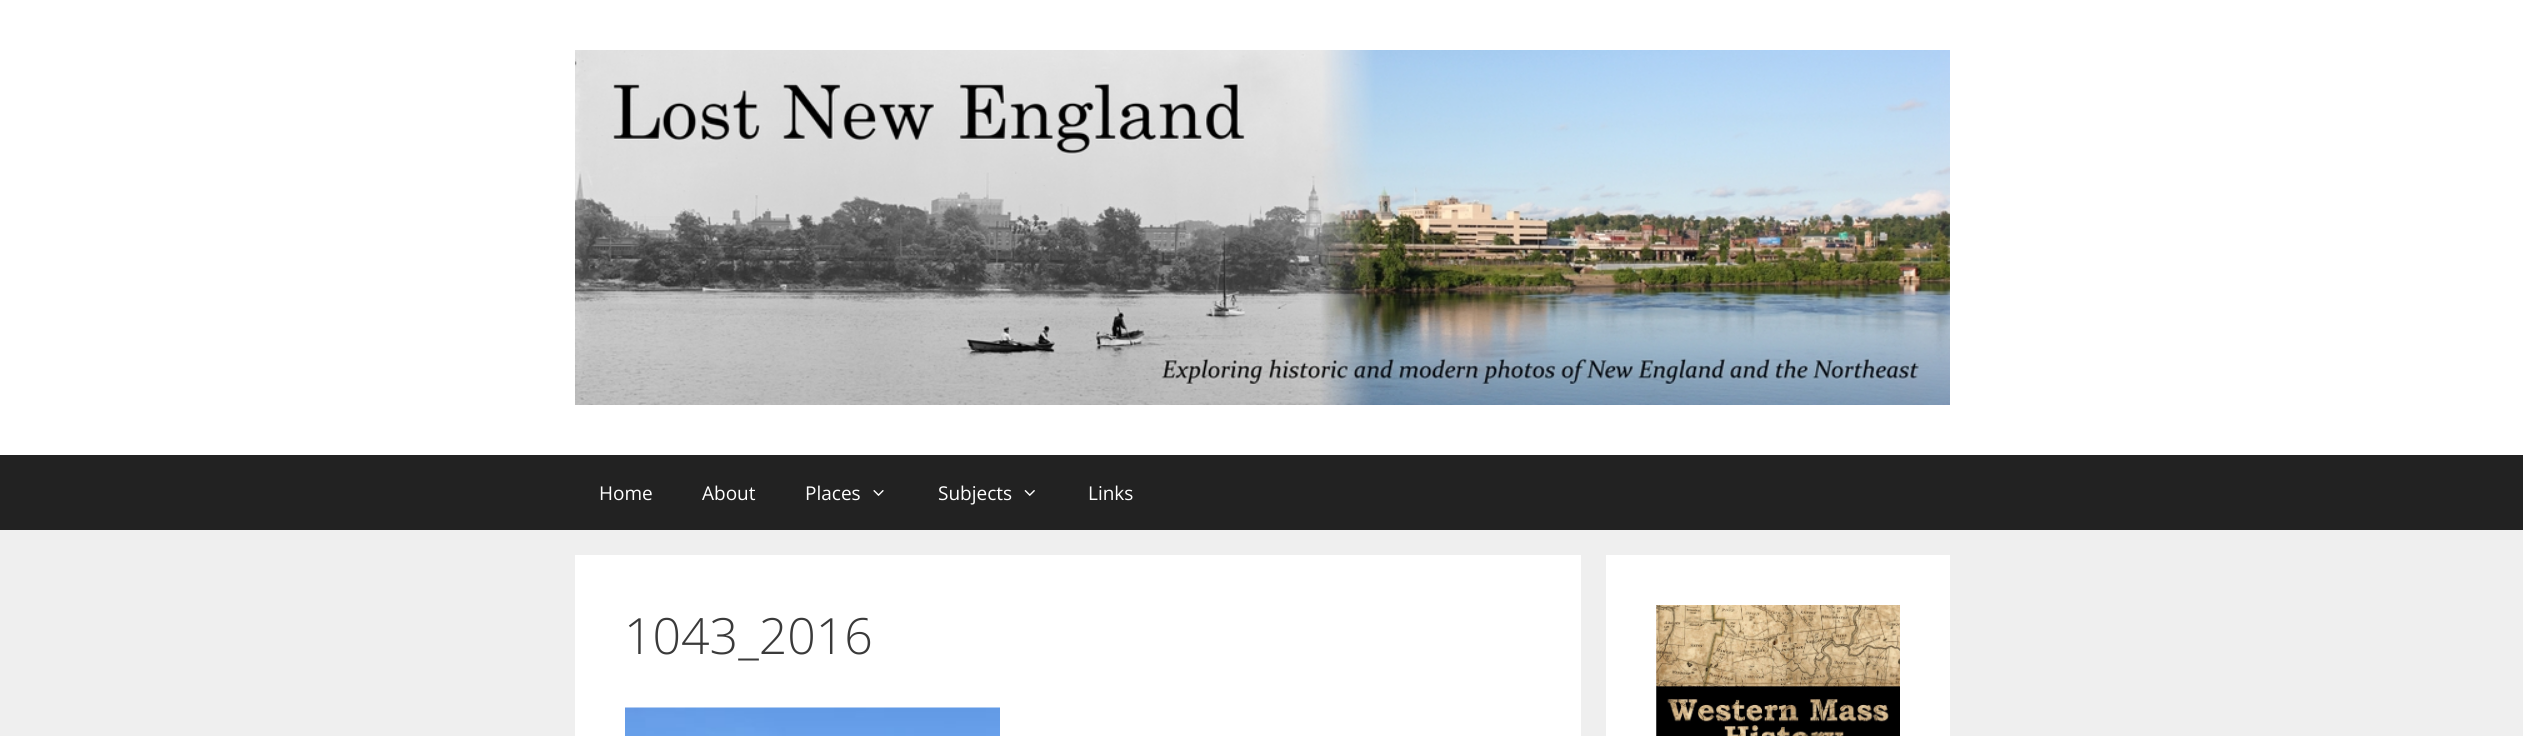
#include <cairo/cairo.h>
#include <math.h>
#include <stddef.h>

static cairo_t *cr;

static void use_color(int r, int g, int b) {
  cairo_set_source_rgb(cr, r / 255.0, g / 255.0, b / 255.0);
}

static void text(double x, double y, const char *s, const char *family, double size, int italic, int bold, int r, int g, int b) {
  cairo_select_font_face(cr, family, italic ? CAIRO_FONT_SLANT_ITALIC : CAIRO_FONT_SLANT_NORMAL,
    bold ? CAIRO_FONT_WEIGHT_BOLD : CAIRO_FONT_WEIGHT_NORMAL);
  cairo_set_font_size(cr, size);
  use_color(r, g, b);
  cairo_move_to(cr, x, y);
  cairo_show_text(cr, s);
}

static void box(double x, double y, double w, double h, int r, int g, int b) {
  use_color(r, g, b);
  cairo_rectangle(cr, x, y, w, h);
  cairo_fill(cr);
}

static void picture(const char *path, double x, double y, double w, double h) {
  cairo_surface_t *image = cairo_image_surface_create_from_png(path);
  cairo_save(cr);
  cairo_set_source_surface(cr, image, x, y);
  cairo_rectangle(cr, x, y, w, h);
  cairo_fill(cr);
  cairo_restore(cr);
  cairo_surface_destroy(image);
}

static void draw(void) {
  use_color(239, 239, 239);
  cairo_paint(cr);
  box(0, 0, 2523, 455, 255, 255, 255);
  picture("img_01.png", 575, 50, 1375, 355);
  box(0, 455, 2523, 75, 34, 34, 34);
  picture("img_02.png", 873, 490, 11, 6);
  picture("img_03.png", 1024, 490, 11, 6);
  box(575, 555, 1006, 181, 255, 255, 255);
  picture("img_04.png", 625, 707, 375, 29);
  box(1606, 555, 344, 181, 255, 255, 255);
  picture("img_05.png", 1656, 605, 244, 131);
  text(599, 500, "Home", "Open Sans", 19, 0, 0, 255, 255, 255);
  text(702, 500, "About", "Open Sans", 19, 0, 0, 255, 255, 255);
  text(805, 500, "Places", "Open Sans", 19, 0, 0, 255, 255, 255);
  text(938, 500, "Subjects", "Open Sans", 19, 0, 0, 255, 255, 255);
  text(1088, 500, "Links", "Open Sans", 19, 0, 0, 255, 255, 255);
  text(624, 654, "1043_2016", "Open Sans Light", 50, 0, 0, 58, 58, 58);
}

int main(void) {
  cairo_surface_t *surface = cairo_image_surface_create(CAIRO_FORMAT_RGB24, 2523, 736);
  cr = cairo_create(surface);
  cairo_font_options_t *options = cairo_font_options_create();
  cairo_font_options_set_hint_metrics(options, CAIRO_HINT_METRICS_OFF);
  cairo_font_options_set_hint_style(options, CAIRO_HINT_STYLE_NONE);
  cairo_set_font_options(cr, options);
  cairo_set_miter_limit(cr, 4);
  draw();
  cairo_surface_write_to_png(surface, "out.png");
  cairo_font_options_destroy(options);
  cairo_destroy(cr);
  cairo_surface_destroy(surface);
  return 0;
}
